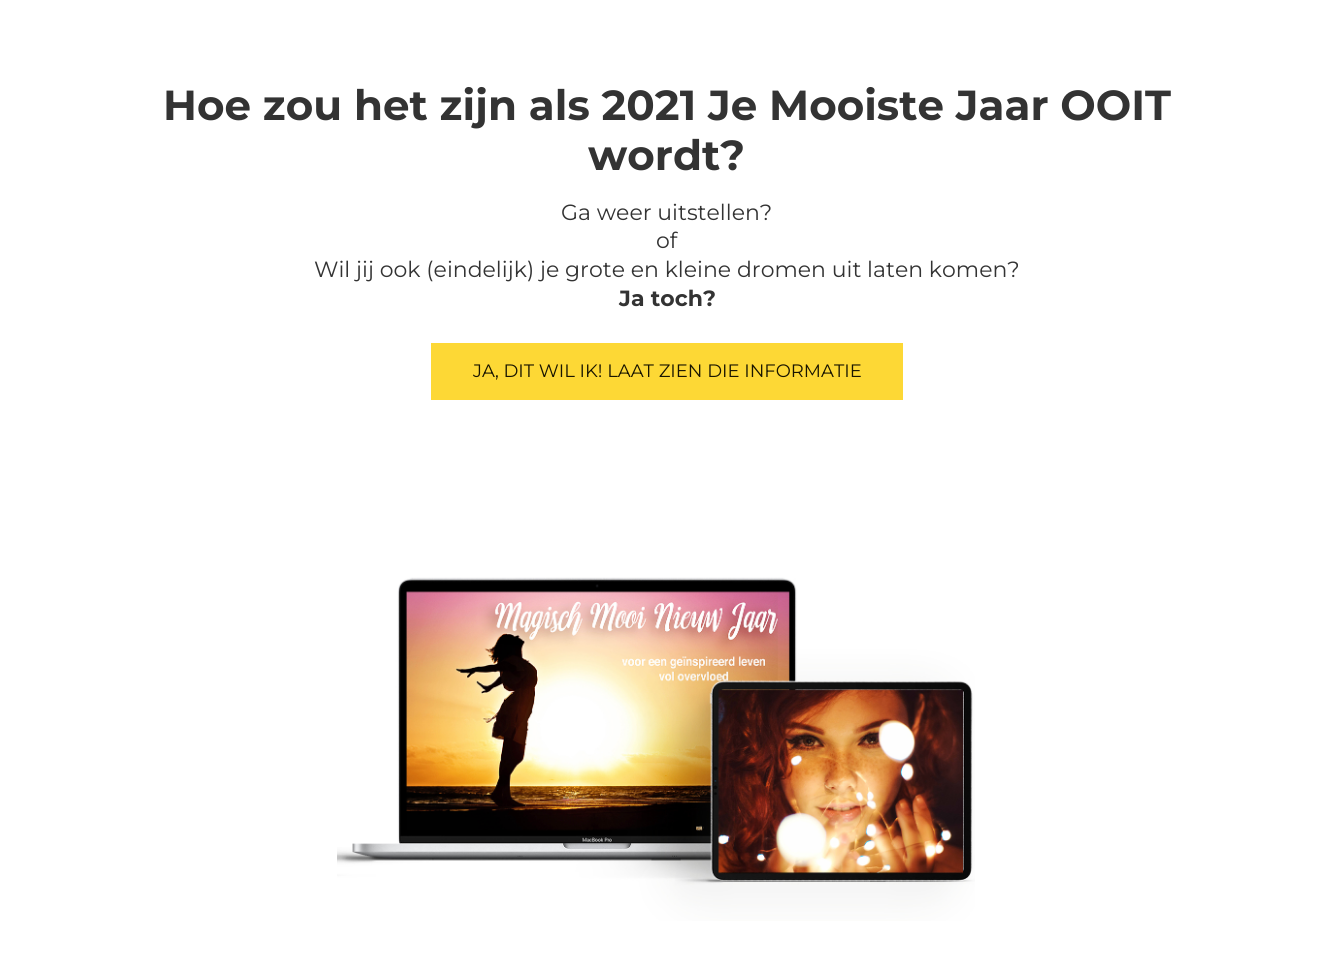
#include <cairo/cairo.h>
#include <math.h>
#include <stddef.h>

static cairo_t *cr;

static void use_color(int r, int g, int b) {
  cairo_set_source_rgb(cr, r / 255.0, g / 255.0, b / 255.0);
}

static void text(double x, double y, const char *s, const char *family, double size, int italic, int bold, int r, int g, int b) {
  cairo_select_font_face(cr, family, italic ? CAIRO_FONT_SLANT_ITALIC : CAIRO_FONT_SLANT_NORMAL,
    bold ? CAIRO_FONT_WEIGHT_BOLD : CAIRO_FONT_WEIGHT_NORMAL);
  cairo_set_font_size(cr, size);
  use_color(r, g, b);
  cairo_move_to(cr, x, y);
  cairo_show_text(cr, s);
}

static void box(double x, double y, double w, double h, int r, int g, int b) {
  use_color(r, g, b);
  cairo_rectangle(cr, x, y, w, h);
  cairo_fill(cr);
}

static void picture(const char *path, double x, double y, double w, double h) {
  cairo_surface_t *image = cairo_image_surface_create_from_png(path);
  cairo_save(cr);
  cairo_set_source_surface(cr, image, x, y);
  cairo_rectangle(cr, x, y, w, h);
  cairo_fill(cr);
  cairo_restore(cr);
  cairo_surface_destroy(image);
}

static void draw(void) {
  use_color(255, 255, 255);
  cairo_paint(cr);
  box(431, 343, 472, 57, 253, 216, 53);
  picture("img_01.png", 337, 577, 638, 344);
  text(163, 120, "Hoe zou het zijn als 2021 Je Mooiste Jaar OOIT", "Montserrat Thin", 42, 0, 0, 51, 51, 51);
  text(588, 170, "wordt?", "Montserrat Thin", 42, 0, 0, 51, 51, 51);
  text(561, 220, "Ga weer uitstellen?", "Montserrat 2 Thin", 22, 0, 0, 51, 51, 51);
  text(656, 248, "of", "Montserrat 2 Thin", 22, 0, 0, 51, 51, 51);
  text(314, 277, "Wil jij ook (eindelijk) je grote en kleine dromen uit laten komen?", "Montserrat 2 Thin", 22, 0, 0, 51, 51, 51);
  text(619, 306, "Ja toch?", "Montserrat Thin", 22, 0, 0, 51, 51, 51);
  text(473, 377, "JA, DIT WIL IK! LAAT ZIEN DIE INFORMATIE", "Montserrat 2 Thin", 18, 0, 0, 25, 21, 0);
}

int main(void) {
  cairo_surface_t *surface = cairo_image_surface_create(CAIRO_FORMAT_RGB24, 1334, 971);
  cr = cairo_create(surface);
  cairo_font_options_t *options = cairo_font_options_create();
  cairo_font_options_set_hint_metrics(options, CAIRO_HINT_METRICS_OFF);
  cairo_font_options_set_hint_style(options, CAIRO_HINT_STYLE_NONE);
  cairo_set_font_options(cr, options);
  cairo_set_miter_limit(cr, 4);
  draw();
  cairo_surface_write_to_png(surface, "out.png");
  cairo_font_options_destroy(options);
  cairo_destroy(cr);
  cairo_surface_destroy(surface);
  return 0;
}
